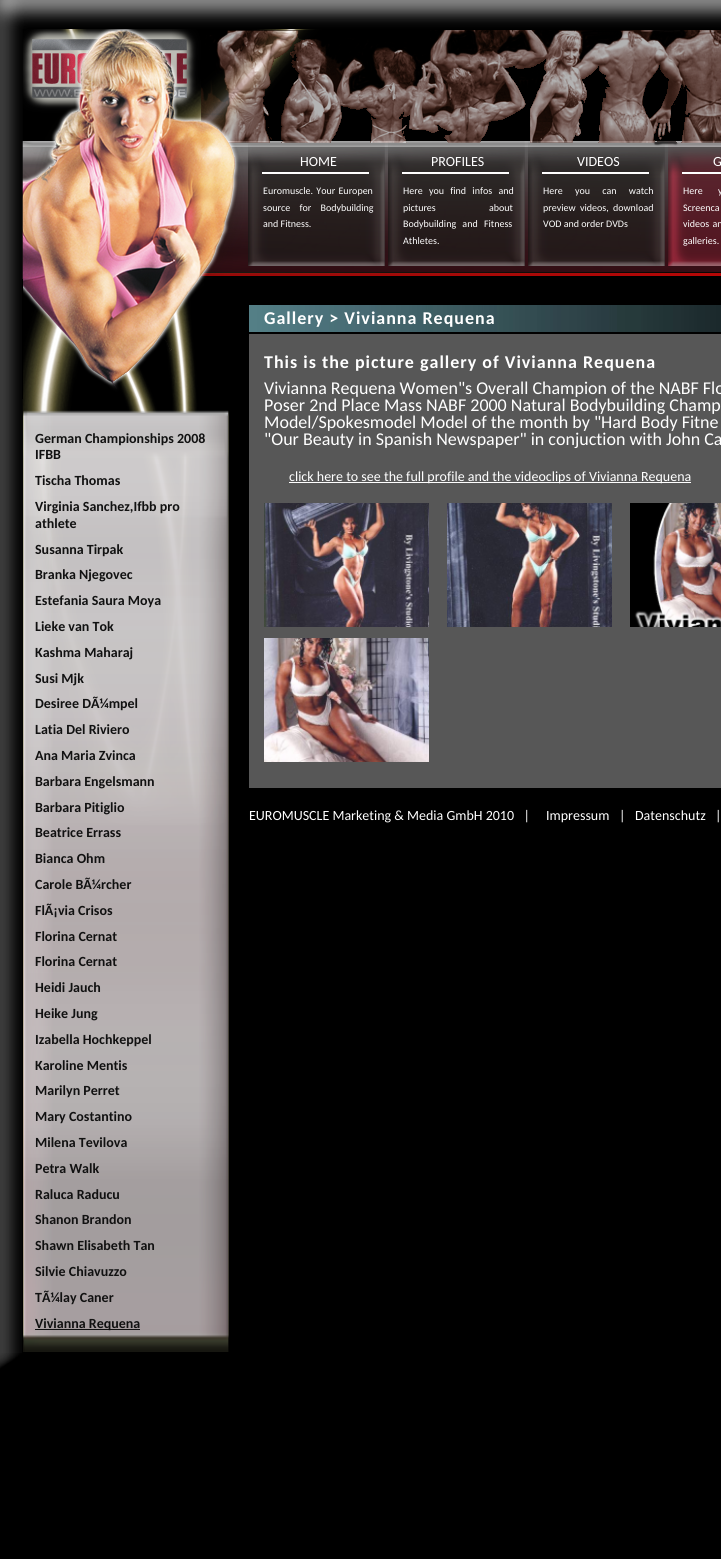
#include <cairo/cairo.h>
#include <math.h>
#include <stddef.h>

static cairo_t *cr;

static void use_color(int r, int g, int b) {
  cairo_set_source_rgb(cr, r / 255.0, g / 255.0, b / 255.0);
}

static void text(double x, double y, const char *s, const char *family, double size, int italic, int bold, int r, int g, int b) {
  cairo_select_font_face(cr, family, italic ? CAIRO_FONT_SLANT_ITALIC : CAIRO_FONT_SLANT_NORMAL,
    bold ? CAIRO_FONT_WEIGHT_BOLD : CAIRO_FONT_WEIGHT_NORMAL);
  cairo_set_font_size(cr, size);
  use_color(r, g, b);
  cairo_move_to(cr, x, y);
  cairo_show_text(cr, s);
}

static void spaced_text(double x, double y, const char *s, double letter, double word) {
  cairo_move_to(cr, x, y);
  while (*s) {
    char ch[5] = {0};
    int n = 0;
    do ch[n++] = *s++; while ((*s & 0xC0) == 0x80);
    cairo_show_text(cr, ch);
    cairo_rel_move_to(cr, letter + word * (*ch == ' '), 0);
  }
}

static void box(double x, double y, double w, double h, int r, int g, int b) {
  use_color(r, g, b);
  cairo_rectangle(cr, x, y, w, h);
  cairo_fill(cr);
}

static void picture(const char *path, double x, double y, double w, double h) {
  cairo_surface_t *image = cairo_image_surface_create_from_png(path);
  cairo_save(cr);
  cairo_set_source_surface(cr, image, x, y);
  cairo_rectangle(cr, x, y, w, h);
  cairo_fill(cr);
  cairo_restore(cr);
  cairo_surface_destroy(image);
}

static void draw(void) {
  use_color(0, 0, 0);
  cairo_paint(cr);
  picture("img_01.png", 22, 147, 699, 129);
  picture("img_02.png", 0, 0, 721, 279);
  picture("img_03.png", 248, 141, 137, 125);
  picture("img_04.png", 388, 141, 137, 125);
  picture("img_05.png", 528, 141, 137, 125);
  picture("img_06.png", 668, 141, 53, 125);
  picture("img_07.png", 0, 279, 22, 1074);
  picture("img_08.png", 0, 1353, 22, 24);
  picture("img_09.png", 23, 279, 181, 120);
  picture("img_10.png", 21, 399, 208, 426);
  picture("img_11.png", 23, 410, 206, 942);
  box(35, 1329, 105, 1, 17, 17, 17);
  picture("img_12.png", 249, 305, 472, 27);
  box(249, 334, 472, 454, 87, 87, 87);
  box(289, 482, 402, 1, 255, 255, 255);
  picture("img_13.png", 264, 503, 165, 124);
  picture("img_14.png", 447, 503, 165, 124);
  picture("img_15.png", 630, 503, 91, 124);
  picture("img_16.png", 264, 638, 165, 124);
  text(300, 166, "HOME", "Carlito", 14, 0, 0, 255, 255, 255);
  cairo_set_font_size(cr, 10);
  spaced_text(263, 194, "Euromuscle. Your Europen", 0, 1);
  spaced_text(263, 211, "source for Bodybuilding", 0, 7);
  text(263, 227, "and Fitness.", "Carlito", 10, 0, 0, 255, 255, 255);
  text(431, 166, "PROFILES", "Carlito", 14, 0, 0, 255, 255, 255);
  cairo_set_font_size(cr, 10);
  spaced_text(403, 194, "Here you find infos and", 0, 4);
  spaced_text(403, 211, "pictures about", 0, 51);
  spaced_text(403, 227, "Bodybuilding and Fitness", 0, 4);
  text(403, 244, "Athletes.", "Carlito", 10, 0, 0, 255, 255, 255);
  text(577, 166, "VIDEOS", "Carlito", 14, 0, 0, 255, 255, 255);
  cairo_set_font_size(cr, 10);
  spaced_text(543, 194, "Here you can watch", 0, 10);
  spaced_text(543, 211, "preview videos, download", 0, 2);
  text(543, 227, "VOD and order DVDs", "Carlito", 10, 0, 0, 255, 255, 255);
  text(713, 166, "G", "Carlito", 14, 0, 0, 255, 255, 255);
  cairo_set_font_size(cr, 10);
  spaced_text(683, 194, "Here y", 0, 13);
  spaced_text(683, 211, "Screenca", 0, 4);
  spaced_text(683, 227, "videos an", 0, 1);
  text(683, 244, "galleries.", "Carlito", 10, 0, 0, 255, 255, 255);
  text(35, 443, "German Championships 2008", "Carlito", 14, 0, 1, 17, 17, 17);
  text(35, 459, "IFBB", "Carlito", 14, 0, 1, 17, 17, 17);
  text(35, 485, "Tischa Thomas", "Carlito", 14, 0, 1, 17, 17, 17);
  text(35, 511, "Virginia Sanchez,Ifbb pro", "Carlito", 14, 0, 1, 17, 17, 17);
  text(35, 528, "athlete", "Carlito", 14, 0, 1, 17, 17, 17);
  text(35, 554, "Susanna Tirpak", "Carlito", 14, 0, 1, 17, 17, 17);
  text(35, 579, "Branka Njegovec", "Carlito", 14, 0, 1, 17, 17, 17);
  text(35, 605, "Estefania Saura Moya", "Carlito", 14, 0, 1, 17, 17, 17);
  text(35, 631, "Lieke van Tok", "Carlito", 14, 0, 1, 17, 17, 17);
  text(35, 657, "Kashma Maharaj", "Carlito", 14, 0, 1, 17, 17, 17);
  text(35, 683, "Susi Mjk", "Carlito", 14, 0, 1, 17, 17, 17);
  text(35, 708, "Desiree DÃ¼mpel", "Carlito", 14, 0, 1, 17, 17, 17);
  text(35, 734, "Latia Del Riviero", "Carlito", 14, 0, 1, 17, 17, 17);
  text(35, 760, "Ana Maria Zvinca", "Carlito", 14, 0, 1, 17, 17, 17);
  text(35, 786, "Barbara Engelsmann", "Carlito", 14, 0, 1, 17, 17, 17);
  text(35, 812, "Barbara Pitiglio", "Carlito", 14, 0, 1, 17, 17, 17);
  text(35, 837, "Beatrice Errass", "Carlito", 14, 0, 1, 17, 17, 17);
  text(35, 863, "Bianca Ohm", "Carlito", 14, 0, 1, 17, 17, 17);
  text(35, 889, "Carole BÃ¼rcher", "Carlito", 14, 0, 1, 17, 17, 17);
  text(35, 915, "FlÃ¡via Crisos", "Carlito", 14, 0, 1, 17, 17, 17);
  text(35, 941, "Florina Cernat", "Carlito", 14, 0, 1, 17, 17, 17);
  text(35, 966, "Florina Cernat", "Carlito", 14, 0, 1, 17, 17, 17);
  text(35, 992, "Heidi Jauch", "Carlito", 14, 0, 1, 17, 17, 17);
  text(35, 1018, "Heike Jung", "Carlito", 14, 0, 1, 17, 17, 17);
  text(35, 1044, "Izabella Hochkeppel", "Carlito", 14, 0, 1, 17, 17, 17);
  text(35, 1070, "Karoline Mentis", "Carlito", 14, 0, 1, 17, 17, 17);
  text(35, 1095, "Marilyn Perret", "Carlito", 14, 0, 1, 17, 17, 17);
  text(35, 1121, "Mary Costantino", "Carlito", 14, 0, 1, 17, 17, 17);
  text(35, 1147, "Milena Tevilova", "Carlito", 14, 0, 1, 17, 17, 17);
  text(35, 1173, "Petra Walk", "Carlito", 14, 0, 1, 17, 17, 17);
  text(35, 1199, "Raluca Raducu", "Carlito", 14, 0, 1, 17, 17, 17);
  text(35, 1224, "Shanon Brandon", "Carlito", 14, 0, 1, 17, 17, 17);
  text(35, 1250, "Shawn Elisabeth Tan", "Carlito", 14, 0, 1, 17, 17, 17);
  text(35, 1276, "Silvie Chiavuzzo", "Carlito", 14, 0, 1, 17, 17, 17);
  text(35, 1302, "TÃ¼lay Caner", "Carlito", 14, 0, 1, 17, 17, 17);
  text(35, 1328, "Vivianna Requena", "Carlito", 14, 0, 1, 17, 17, 17);
  cairo_set_font_size(cr, 18);
  use_color(255, 255, 255);
  spaced_text(264, 324, "Gallery > Vivianna Requena", 1, 0);
  spaced_text(264, 368, "This is the picture gallery of Vivianna Requena", 1, 0);
  text(264, 394, "Vivianna Requena Women\"s Overall Champion of the NABF Flo", "Carlito", 18, 0, 0, 255, 255, 255);
  text(264, 411, "Poser 2nd Place Mass NABF 2000 Natural Bodybuilding Champ", "Carlito", 18, 0, 0, 255, 255, 255);
  text(264, 428, "Model/Spokesmodel Model of the month by \"Hard Body Fitne", "Carlito", 18, 0, 0, 255, 255, 255);
  text(264, 445, "\"Our Beauty in Spanish Newspaper\" in conjuction with John Ca", "Carlito", 18, 0, 0, 255, 255, 255);
  text(289, 481, "click here to see the full profile and the videoclips of Vivianna Requena", "Carlito", 14, 0, 0, 255, 255, 255);
  text(249, 820, "EUROMUSCLE Marketing & Media GmbH 2010   |", "Carlito", 14, 0, 0, 255, 255, 255);
  text(546, 820, "Impressum", "Carlito", 14, 0, 0, 255, 255, 255);
  text(619, 820, "|", "Carlito", 14, 0, 0, 255, 255, 255);
  text(635, 820, "Datenschutz", "Carlito", 14, 0, 0, 255, 255, 255);
  text(715, 820, "|", "Carlito", 14, 0, 0, 255, 255, 255);
}

int main(void) {
  cairo_surface_t *surface = cairo_image_surface_create(CAIRO_FORMAT_RGB24, 721, 1559);
  cr = cairo_create(surface);
  cairo_font_options_t *options = cairo_font_options_create();
  cairo_font_options_set_hint_metrics(options, CAIRO_HINT_METRICS_OFF);
  cairo_font_options_set_hint_style(options, CAIRO_HINT_STYLE_NONE);
  cairo_set_font_options(cr, options);
  cairo_set_miter_limit(cr, 4);
  draw();
  cairo_surface_write_to_png(surface, "out.png");
  cairo_font_options_destroy(options);
  cairo_destroy(cr);
  cairo_surface_destroy(surface);
  return 0;
}
